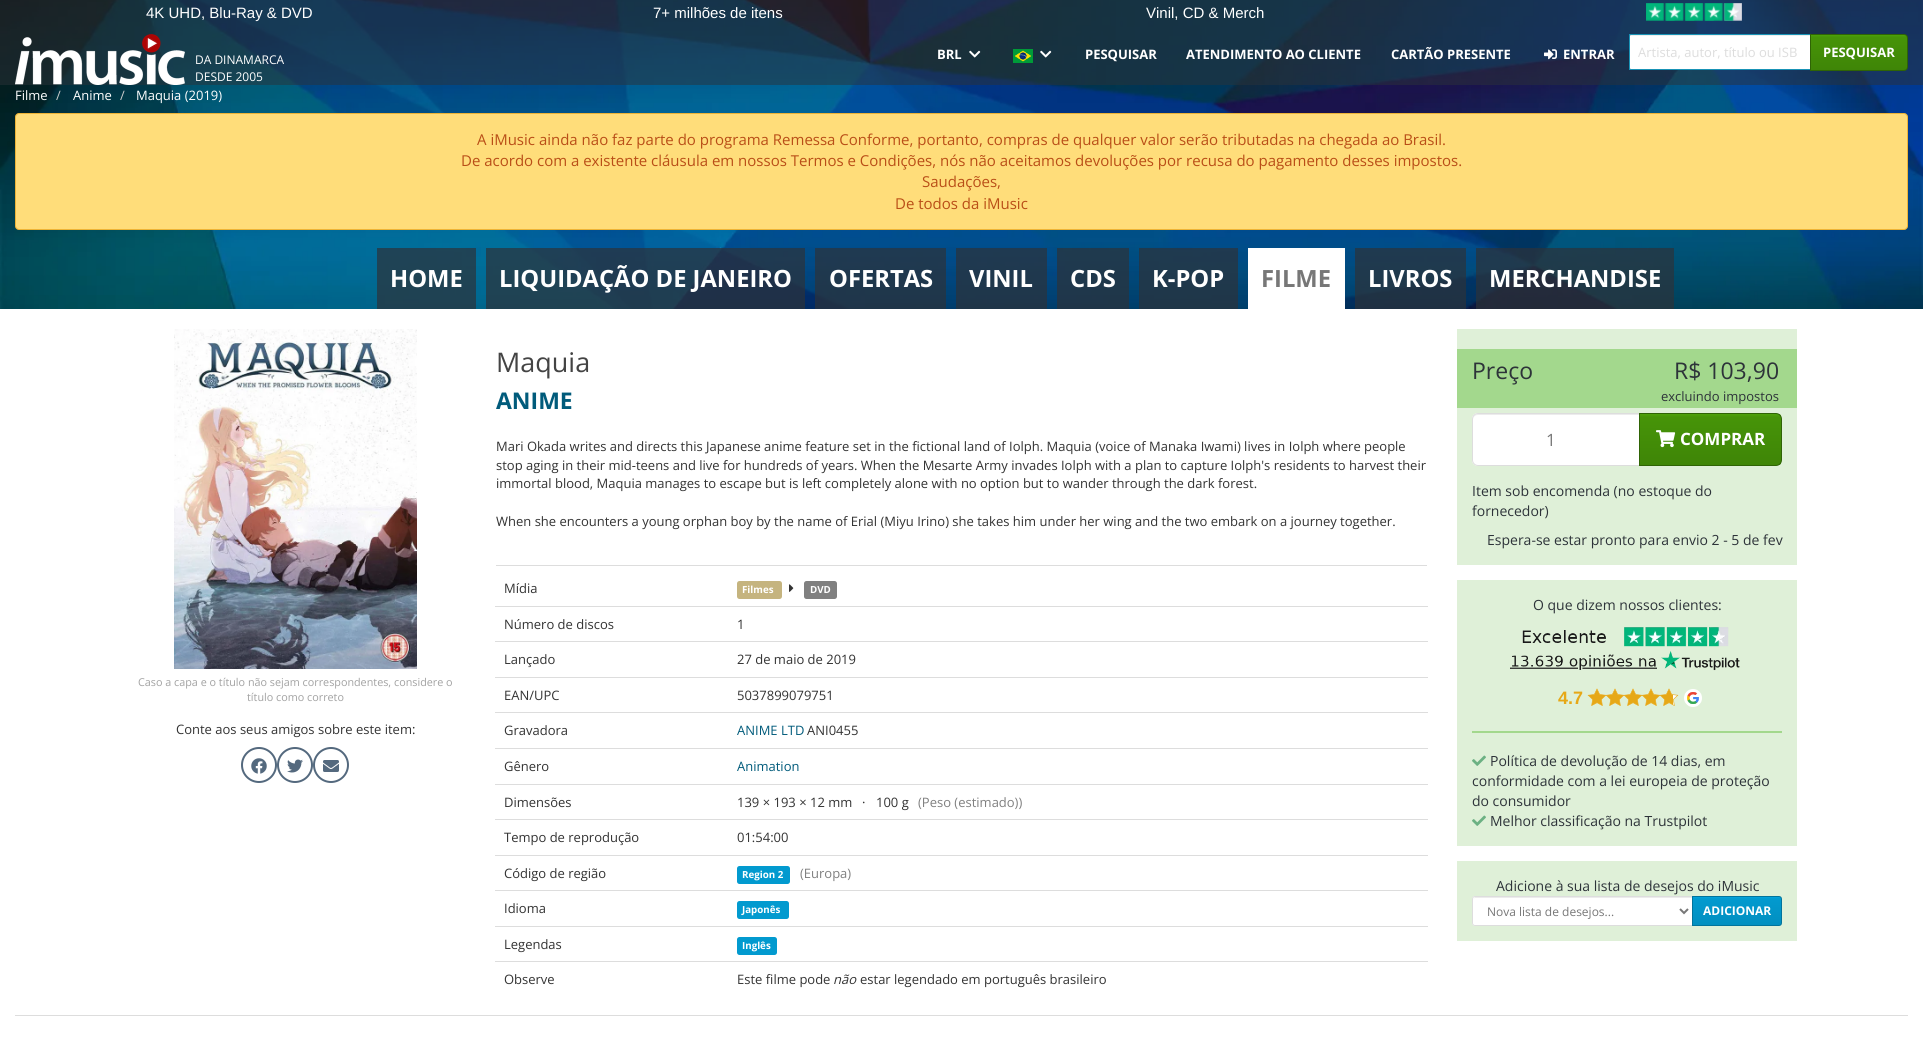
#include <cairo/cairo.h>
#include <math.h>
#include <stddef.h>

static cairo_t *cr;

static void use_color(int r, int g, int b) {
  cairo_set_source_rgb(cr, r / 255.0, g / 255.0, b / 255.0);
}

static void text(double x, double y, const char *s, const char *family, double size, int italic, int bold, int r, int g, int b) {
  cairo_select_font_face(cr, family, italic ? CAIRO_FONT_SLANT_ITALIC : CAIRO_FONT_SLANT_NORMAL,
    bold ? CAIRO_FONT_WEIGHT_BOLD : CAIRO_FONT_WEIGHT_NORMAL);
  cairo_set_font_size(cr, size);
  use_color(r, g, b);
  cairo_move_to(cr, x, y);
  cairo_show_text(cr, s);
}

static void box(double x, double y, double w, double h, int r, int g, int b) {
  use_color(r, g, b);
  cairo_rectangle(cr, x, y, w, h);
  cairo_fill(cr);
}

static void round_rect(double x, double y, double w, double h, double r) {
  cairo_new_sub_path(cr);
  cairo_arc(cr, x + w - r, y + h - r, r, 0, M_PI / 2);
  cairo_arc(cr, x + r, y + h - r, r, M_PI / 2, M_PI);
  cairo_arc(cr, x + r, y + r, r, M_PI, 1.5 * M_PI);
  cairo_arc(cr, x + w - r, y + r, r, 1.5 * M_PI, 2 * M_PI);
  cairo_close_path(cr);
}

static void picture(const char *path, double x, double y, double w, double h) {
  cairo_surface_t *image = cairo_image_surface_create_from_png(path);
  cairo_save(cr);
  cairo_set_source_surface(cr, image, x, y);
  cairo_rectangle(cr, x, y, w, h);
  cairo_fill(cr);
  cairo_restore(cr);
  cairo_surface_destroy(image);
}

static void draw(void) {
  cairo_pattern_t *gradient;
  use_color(255, 255, 255);
  cairo_paint(cr);
  picture("img_01.png", 0, 0, 1923, 309);
  cairo_set_source_rgba(cr, 0.176, 0.2, 0.224, 0.5);
  cairo_rectangle(cr, 0, 0, 1923, 85);
  cairo_fill(cr);
  picture("img_02.png", 1646, 3, 96, 18);
  picture("img_03.png", 15, 34, 170, 51);
  picture("img_04.png", 969, 50, 12, 8);
  picture("img_05.png", 1013, 49, 20, 14);
  picture("img_06.png", 1040, 50, 12, 8);
  picture("img_07.png", 1544, 49, 13, 11);
  use_color(255, 255, 255);
  cairo_new_path(cr);
  cairo_move_to(cr, 1633, 34);
  cairo_line_to(cr, 1811, 34);
  cairo_line_to(cr, 1811, 70);
  cairo_line_to(cr, 1633, 70);
  cairo_curve_to(cr, 1631, 70, 1629, 68, 1629, 66);
  cairo_line_to(cr, 1629, 38);
  cairo_curve_to(cr, 1629, 36, 1631, 34, 1633, 34);
  cairo_close_path(cr);
  cairo_fill(cr);
  cairo_set_source_rgba(cr, 0, 0, 0, 0.07);
  cairo_rectangle(cr, 1630, 35, 180, 1);
  cairo_fill(cr);
  cairo_rectangle(cr, 1629.5, 34.5, 181, 35);
  use_color(25, 147, 182);
  cairo_set_line_width(cr, 1);
  cairo_stroke(cr);
  gradient = cairo_pattern_create_linear(1859, 35, 1859, 70);
  cairo_pattern_add_color_stop_rgba(gradient, 0, 0.302, 0.639, 0.035, 1);
  cairo_pattern_add_color_stop_rgba(gradient, 0.06, 0.275, 0.58, 0.031, 1);
  cairo_pattern_add_color_stop_rgba(gradient, 1, 0.247, 0.522, 0.027, 1);
  cairo_set_source(cr, gradient);
  cairo_pattern_destroy(gradient);
  cairo_rectangle(cr, 1811, 35, 96, 35);
  cairo_fill(cr);
  cairo_new_path(cr);
  cairo_move_to(cr, 1810.5, 34.5);
  cairo_line_to(cr, 1904, 34.5);
  cairo_curve_to(cr, 1906, 34.5, 1907.5, 36, 1907.5, 38);
  cairo_line_to(cr, 1907.5, 67);
  cairo_curve_to(cr, 1907.5, 69, 1906, 70.5, 1904, 70.5);
  cairo_line_to(cr, 1810.5, 70.5);
  cairo_close_path(cr);
  use_color(47, 100, 5);
  cairo_stroke(cr);
  use_color(255, 221, 122);
  round_rect(15.5, 113.5, 1892, 116, 3.5);
  cairo_fill_preserve(cr);
  use_color(238, 180, 55);
  cairo_stroke(cr);
  cairo_set_source_rgba(cr, 0.176, 0.2, 0.224, 0.7);
  cairo_rectangle(cr, 377, 248, 99, 61);
  cairo_fill(cr);
  cairo_rectangle(cr, 486, 248, 319, 61);
  cairo_fill(cr);
  cairo_rectangle(cr, 815, 248, 131, 61);
  cairo_fill(cr);
  cairo_rectangle(cr, 956, 248, 91, 61);
  cairo_fill(cr);
  cairo_rectangle(cr, 1057, 248, 72, 61);
  cairo_fill(cr);
  cairo_rectangle(cr, 1139, 248, 99, 61);
  cairo_fill(cr);
  box(1248, 248, 97, 61, 255, 255, 255);
  cairo_set_source_rgba(cr, 0.176, 0.2, 0.224, 0.7);
  cairo_rectangle(cr, 1355, 248, 111, 61);
  cairo_fill(cr);
  cairo_rectangle(cr, 1476, 248, 198, 61);
  cairo_fill(cr);
  picture("img_08.png", 174, 329, 243, 340);
  cairo_arc(cr, 259, 765, 17, 0, 2 * M_PI);
  use_color(84, 105, 126);
  cairo_set_line_width(cr, 2);
  cairo_stroke(cr);
  picture("img_09.png", 251, 758, 16, 16);
  cairo_arc(cr, 295, 765, 17, 0, 2 * M_PI);
  cairo_stroke(cr);
  picture("img_10.png", 287, 759, 16, 14);
  cairo_arc(cr, 331, 765, 17, 0, 2 * M_PI);
  cairo_stroke(cr);
  picture("img_11.png", 323, 760, 16, 12);
  box(496, 565, 931, 1, 221, 221, 221);
  use_color(197, 180, 127);
  round_rect(737, 581, 45, 18, 2.5);
  cairo_fill(cr);
  picture("img_12.png", 789, 584, 5, 8);
  use_color(128, 128, 128);
  round_rect(804, 581, 33, 18, 2.5);
  cairo_fill(cr);
  box(495, 606, 933, 1, 221, 221, 221);
  box(495, 641, 933, 1, 221, 221, 221);
  box(495, 677, 933, 1, 221, 221, 221);
  box(495, 712, 933, 1, 221, 221, 221);
  box(495, 748, 933, 1, 221, 221, 221);
  box(495, 784, 933, 1, 221, 221, 221);
  box(495, 819, 933, 1, 221, 221, 221);
  box(495, 855, 933, 1, 221, 221, 221);
  use_color(2, 154, 207);
  round_rect(737, 866, 53, 18, 2.5);
  cairo_fill(cr);
  box(495, 890, 933, 1, 221, 221, 221);
  use_color(2, 154, 207);
  round_rect(737, 901, 52, 18, 2.5);
  cairo_fill(cr);
  box(495, 926, 933, 1, 221, 221, 221);
  use_color(2, 154, 207);
  round_rect(737, 937, 40, 18, 2.5);
  cairo_fill(cr);
  box(495, 961, 933, 1, 221, 221, 221);
  box(1457, 329, 340, 236, 223, 240, 216);
  box(1457, 349, 340, 59, 163, 216, 141);
  use_color(255, 255, 255);
  cairo_new_path(cr);
  cairo_move_to(cr, 1478, 413);
  cairo_line_to(cr, 1640, 413);
  cairo_line_to(cr, 1640, 466);
  cairo_line_to(cr, 1478, 466);
  cairo_curve_to(cr, 1474.5, 466, 1472, 463.5, 1472, 460);
  cairo_line_to(cr, 1472, 419);
  cairo_curve_to(cr, 1472, 415.5, 1474.5, 413, 1478, 413);
  cairo_close_path(cr);
  cairo_fill(cr);
  use_color(236, 236, 236);
  cairo_new_path(cr);
  cairo_move_to(cr, 1478, 415);
  cairo_line_to(cr, 1639, 415);
  cairo_line_to(cr, 1639, 414);
  cairo_line_to(cr, 1478, 414);
  cairo_curve_to(cr, 1475, 414, 1473, 416, 1473, 419);
  cairo_line_to(cr, 1473, 420);
  cairo_curve_to(cr, 1473, 417, 1475, 415, 1478, 415);
  cairo_close_path(cr);
  cairo_fill(cr);
  cairo_new_path(cr);
  cairo_move_to(cr, 1478, 413.5);
  cairo_line_to(cr, 1639.5, 413.5);
  cairo_line_to(cr, 1639.5, 465.5);
  cairo_line_to(cr, 1478, 465.5);
  cairo_curve_to(cr, 1475, 465.5, 1472.5, 463, 1472.5, 460);
  cairo_line_to(cr, 1472.5, 419);
  cairo_curve_to(cr, 1472.5, 416, 1475, 413.5, 1478, 413.5);
  cairo_close_path(cr);
  use_color(221, 221, 221);
  cairo_set_line_width(cr, 1);
  cairo_stroke(cr);
  cairo_save(cr);
  cairo_new_path(cr);
  cairo_move_to(cr, 1639, 413);
  cairo_line_to(cr, 1776, 413);
  cairo_curve_to(cr, 1779.5, 413, 1782, 415.5, 1782, 419);
  cairo_line_to(cr, 1782, 460);
  cairo_curve_to(cr, 1782, 463.5, 1779.5, 466, 1776, 466);
  cairo_line_to(cr, 1639, 466);
  cairo_close_path(cr);
  cairo_clip(cr);
  gradient = cairo_pattern_create_linear(1711, 414, 1711, 465);
  cairo_pattern_add_color_stop_rgba(gradient, 0, 0.302, 0.639, 0.035, 1);
  cairo_pattern_add_color_stop_rgba(gradient, 0.06, 0.275, 0.58, 0.031, 1);
  cairo_pattern_add_color_stop_rgba(gradient, 1, 0.247, 0.522, 0.027, 1);
  cairo_set_source(cr, gradient);
  cairo_pattern_destroy(gradient);
  cairo_rectangle(cr, 1640, 414, 141, 51);
  cairo_fill(cr);
  cairo_restore(cr);
  cairo_new_path(cr);
  cairo_move_to(cr, 1639.5, 413.5);
  cairo_line_to(cr, 1776, 413.5);
  cairo_curve_to(cr, 1779, 413.5, 1781.5, 416, 1781.5, 419);
  cairo_line_to(cr, 1781.5, 460);
  cairo_curve_to(cr, 1781.5, 463, 1779, 465.5, 1776, 465.5);
  cairo_line_to(cr, 1639.5, 465.5);
  cairo_close_path(cr);
  use_color(47, 100, 5);
  cairo_stroke(cr);
  picture("img_13.png", 1656, 430, 20, 18);
  box(1457, 580, 340, 266, 223, 240, 216);
  picture("img_14.png", 1510, 627, 230, 44);
  picture("img_15.png", 1587, 688, 92, 18);
  picture("img_16.png", 1684, 689, 18, 18);
  box(1472, 731, 310, 2, 163, 216, 141);
  picture("img_17.png", 1472, 755, 14, 11);
  picture("img_17.png", 1472, 815, 14, 11);
  box(1457, 861, 340, 80, 223, 240, 216);
  use_color(255, 255, 255);
  cairo_new_path(cr);
  cairo_move_to(cr, 1475, 896);
  cairo_line_to(cr, 1693, 896);
  cairo_line_to(cr, 1693, 926);
  cairo_line_to(cr, 1475, 926);
  cairo_curve_to(cr, 1473.5, 926, 1472, 924.5, 1472, 923);
  cairo_line_to(cr, 1472, 899);
  cairo_curve_to(cr, 1472, 897.5, 1473.5, 896, 1475, 896);
  cairo_close_path(cr);
  cairo_fill(cr);
  use_color(236, 236, 236);
  cairo_new_path(cr);
  cairo_move_to(cr, 1475, 898);
  cairo_line_to(cr, 1692, 898);
  cairo_line_to(cr, 1692, 897);
  cairo_line_to(cr, 1475, 897);
  cairo_line_to(cr, 1474, 898);
  cairo_line_to(cr, 1473, 900);
  cairo_curve_to(cr, 1473, 899, 1474, 898, 1475, 898);
  cairo_close_path(cr);
  cairo_fill(cr);
  cairo_new_path(cr);
  cairo_move_to(cr, 1475, 896.5);
  cairo_line_to(cr, 1692.5, 896.5);
  cairo_line_to(cr, 1692.5, 925.5);
  cairo_line_to(cr, 1475, 925.5);
  cairo_curve_to(cr, 1473.5, 925.5, 1472.5, 924.5, 1472.5, 923);
  cairo_line_to(cr, 1472.5, 899);
  cairo_curve_to(cr, 1472.5, 897.5, 1473.5, 896.5, 1475, 896.5);
  cairo_close_path(cr);
  use_color(221, 221, 221);
  cairo_stroke(cr);
  cairo_new_path(cr);
  cairo_move_to(cr, 1680, 909);
  cairo_line_to(cr, 1684, 913);
  cairo_line_to(cr, 1688, 909);
  use_color(119, 119, 119);
  cairo_set_line_width(cr, 2);
  cairo_stroke(cr);
  gradient = cairo_pattern_create_linear(1737, 897, 1737, 925);
  cairo_pattern_add_color_stop_rgba(gradient, 0, 0.008, 0.647, 0.871, 1);
  cairo_pattern_add_color_stop_rgba(gradient, 0.06, 0.008, 0.604, 0.812, 1);
  cairo_pattern_add_color_stop_rgba(gradient, 1, 0.008, 0.561, 0.753, 1);
  cairo_set_source(cr, gradient);
  cairo_pattern_destroy(gradient);
  cairo_rectangle(cr, 1693, 897, 88, 28);
  cairo_fill(cr);
  cairo_new_path(cr);
  cairo_move_to(cr, 1692.5, 896.5);
  cairo_line_to(cr, 1779, 896.5);
  cairo_curve_to(cr, 1780.5, 896.5, 1781.5, 897.5, 1781.5, 899);
  cairo_line_to(cr, 1781.5, 923);
  cairo_curve_to(cr, 1781.5, 924.5, 1780.5, 925.5, 1779, 925.5);
  cairo_line_to(cr, 1692.5, 925.5);
  cairo_close_path(cr);
  use_color(2, 116, 156);
  cairo_set_line_width(cr, 1);
  cairo_stroke(cr);
  box(15, 1015, 1893, 1, 221, 221, 221);
  text(146, 18, "4K UHD, Blu-Ray & DVD", "Liberation Sans", 15, 0, 0, 255, 255, 255);
  text(653, 18, "7+ milhões de itens", "Liberation Sans", 15, 0, 0, 255, 255, 255);
  text(1146, 18, "Vinil, CD & Merch", "Liberation Sans", 15, 0, 0, 255, 255, 255);
  text(195, 64, "DA DINAMARCA", "Open Sans", 12, 0, 0, 255, 255, 255);
  text(195, 81, "DESDE 2005", "Open Sans", 12, 0, 0, 255, 255, 255);
  text(937, 59, "BRL", "Open Sans", 13, 0, 1, 255, 255, 255);
  text(1085, 59, "PESQUISAR", "Open Sans", 13, 0, 1, 255, 255, 255);
  text(1186, 59, "ATENDIMENTO AO CLIENTE", "Open Sans", 13, 0, 1, 255, 255, 255);
  text(1391, 59, "CARTÃO PRESENTE", "Open Sans", 13, 0, 1, 255, 255, 255);
  text(1563, 59, "ENTRAR", "Open Sans", 13, 0, 1, 255, 255, 255);
  text(1638, 57, "Artista, autor, título ou ISB", "Open Sans", 13, 0, 0, 221, 221, 221);
  text(1823, 57, "PESQUISAR", "Open Sans", 13, 0, 1, 255, 255, 255);
  text(15, 100, "Filme", "Open Sans", 13, 0, 0, 255, 255, 255);
  text(56, 100, "/", "Open Sans", 13, 0, 0, 204, 204, 204);
  text(73, 100, "Anime", "Open Sans", 13, 0, 0, 255, 255, 255);
  text(120, 100, "/", "Open Sans", 13, 0, 0, 204, 204, 204);
  text(136, 100, "Maquia (2019)", "Open Sans", 13, 0, 0, 255, 255, 255);
  text(477, 145, "A iMusic ainda não faz parte do programa Remessa Conforme, portanto, compras de qualquer valor serão tributadas na chegada ao Brasil.", "Open Sans", 15, 0, 0, 185, 78, 23);
  text(461, 166, "De acordo com a existente cláusula em nossos Termos e Condições, nós não aceitamos devoluções por recusa do pagamento desses impostos.", "Open Sans", 15, 0, 0, 185, 78, 23);
  text(922, 187, "Saudações,", "Open Sans", 15, 0, 0, 185, 78, 23);
  text(895, 209, "De todos da iMusic", "Open Sans", 15, 0, 0, 185, 78, 23);
  text(390, 287, "HOME", "Open Sans", 23.75, 0, 1, 255, 255, 255);
  text(499, 287, "LIQUIDAÇÃO DE JANEIRO", "Open Sans", 23.75, 0, 1, 255, 255, 255);
  text(829, 287, "OFERTAS", "Open Sans", 23.75, 0, 1, 255, 255, 255);
  text(969, 287, "VINIL", "Open Sans", 23.75, 0, 1, 255, 255, 255);
  text(1070, 287, "CDS", "Open Sans", 23.75, 0, 1, 255, 255, 255);
  text(1152, 287, "K-POP", "Open Sans", 23.75, 0, 1, 255, 255, 255);
  text(1261, 287, "FILME", "Open Sans", 23.75, 0, 1, 119, 119, 119);
  text(1368, 287, "LIVROS", "Open Sans", 23.75, 0, 1, 255, 255, 255);
  text(1489, 287, "MERCHANDISE", "Open Sans", 23.75, 0, 1, 255, 255, 255);
  text(138, 686, "Caso a capa e o título não sejam correspondentes, considere o", "Open Sans", 10.8, 0, 0, 162, 162, 162);
  text(247, 701, "título como correto", "Open Sans", 10.8, 0, 0, 162, 162, 162);
  text(176, 734, "Conte aos seus amigos sobre este item:", "Open Sans", 13, 0, 0, 51, 51, 51);
  text(496, 372, "Maquia", "Open Sans", 27, 0, 0, 68, 68, 68);
  text(496, 409, "ANIME", "Open Sans", 23, 0, 1, 1, 91, 123);
  text(496, 451, "Mari Okada writes and directs this Japanese anime feature set in the fictional land of Iolph. Maquia (voice of Manaka Iwami) lives in Iolph where people", "Open Sans", 13, 0, 0, 51, 51, 51);
  text(496, 470, "stop aging in their mid-teens and live for hundreds of years. When the Mesarte Army invades Iolph with a plan to capture Iolph's residents to harvest their", "Open Sans", 13, 0, 0, 51, 51, 51);
  text(496, 488, "immortal blood, Maquia manages to escape but is left completely alone with no option but to wander through the dark forest.", "Open Sans", 13, 0, 0, 51, 51, 51);
  text(496, 526, "When she encounters a young orphan boy by the name of Erial (Miyu Irino) she takes him under her wing and the two embark on a journey together.", "Open Sans", 13, 0, 0, 51, 51, 51);
  text(504, 593, "Mídia", "Open Sans", 13, 0, 0, 51, 51, 51);
  text(742, 593, "Filmes", "Open Sans", 9.75, 0, 1, 255, 255, 255);
  text(810, 593, "DVD", "Open Sans", 9.75, 0, 1, 255, 255, 255);
  text(504, 629, "Número de discos", "Open Sans", 13, 0, 0, 51, 51, 51);
  text(737, 629, "1", "Open Sans", 13, 0, 0, 51, 51, 51);
  text(504, 664, "Lançado", "Open Sans", 13, 0, 0, 51, 51, 51);
  text(737, 664, "27 de maio de 2019", "Open Sans", 13, 0, 0, 51, 51, 51);
  text(504, 700, "EAN/UPC", "Open Sans", 13, 0, 0, 51, 51, 51);
  text(737, 700, "5037899079751", "Open Sans", 13, 0, 0, 51, 51, 51);
  text(504, 735, "Gravadora", "Open Sans", 13, 0, 0, 51, 51, 51);
  text(737, 735, "ANIME LTD", "Open Sans", 13, 0, 0, 1, 91, 123);
  text(807, 735, "ANI0455", "Open Sans", 13, 0, 0, 51, 51, 51);
  text(504, 771, "Gênero", "Open Sans", 13, 0, 0, 51, 51, 51);
  text(737, 771, "Animation", "Open Sans", 13, 0, 0, 1, 91, 123);
  text(504, 807, "Dimensões", "Open Sans", 13, 0, 0, 51, 51, 51);
  text(737, 807, "139 × 193 × 12 mm", "Open Sans", 13, 0, 0, 51, 51, 51);
  text(862, 807, "·", "Open Sans", 13, 0, 0, 51, 51, 51);
  text(876, 807, "100 g", "Open Sans", 13, 0, 0, 51, 51, 51);
  text(918, 807, "(Peso (estimado))", "Open Sans", 13, 0, 0, 128, 128, 128);
  text(504, 842, "Tempo de reprodução", "Open Sans", 13, 0, 0, 51, 51, 51);
  text(737, 842, "01:54:00", "Open Sans", 13, 0, 0, 51, 51, 51);
  text(504, 878, "Código de região", "Open Sans", 13, 0, 0, 51, 51, 51);
  text(742, 878, "Region 2", "Open Sans", 9.75, 0, 1, 255, 255, 255);
  text(800, 878, "(Europa)", "Open Sans", 13, 0, 0, 128, 128, 128);
  text(504, 913, "Idioma", "Open Sans", 13, 0, 0, 51, 51, 51);
  text(742, 913, "Japonês", "Open Sans", 9.75, 0, 1, 255, 255, 255);
  text(504, 949, "Legendas", "Open Sans", 13, 0, 0, 51, 51, 51);
  text(742, 949, "Inglês", "Open Sans", 9.75, 0, 1, 255, 255, 255);
  text(504, 984, "Observe", "Open Sans", 13, 0, 0, 51, 51, 51);
  text(737, 984, "Este filme pode", "Open Sans", 13, 0, 0, 51, 51, 51);
  text(833, 984, "não", "Open Sans", 13, 1, 0, 51, 51, 51);
  text(860, 984, "estar legendado em português brasileiro", "Open Sans", 13, 0, 0, 51, 51, 51);
  text(1472, 379, "Preço", "Open Sans", 23, 0, 0, 45, 51, 57);
  text(1674, 379, "R$ 103,90", "Open Sans", 23, 0, 0, 45, 51, 57);
  text(1661, 401, "excluindo impostos", "Open Sans", 13, 0, 0, 45, 51, 57);
  text(1546, 446, "1", "Open Sans", 17, 0, 0, 119, 119, 119);
  text(1680, 445, "COMPRAR", "Open Sans", 17, 0, 1, 255, 255, 255);
  text(1472, 496, "Item sob encomenda (no estoque do", "Open Sans", 14, 0, 0, 45, 51, 57);
  text(1472, 516, "fornecedor)", "Open Sans", 14, 0, 0, 45, 51, 57);
  text(1487, 545, "Espera-se estar pronto para envio 2 - 5 de fev", "Open Sans", 14, 0, 0, 45, 51, 57);
  text(1533, 610, "O que dizem nossos clientes:", "Open Sans", 14, 0, 0, 45, 51, 57);
  text(1558, 704, "4.7", "Liberation Sans", 18, 0, 1, 230, 168, 23);
  text(1490, 766, "Política de devolução de 14 dias, em", "Open Sans", 14, 0, 0, 45, 51, 57);
  text(1472, 786, "conformidade com a lei europeia de proteção", "Open Sans", 14, 0, 0, 45, 51, 57);
  text(1472, 806, "do consumidor", "Open Sans", 14, 0, 0, 45, 51, 57);
  text(1490, 826, "Melhor classificação na Trustpilot", "Open Sans", 14, 0, 0, 45, 51, 57);
  text(1496, 891, "Adicione à sua lista de desejos do iMusic", "Open Sans", 14, 0, 0, 45, 51, 57);
  text(1487, 916, "Nova lista de desejos...", "Open Sans", 12, 0, 0, 119, 119, 119);
  text(1703, 915, "ADICIONAR", "Open Sans", 12, 0, 1, 255, 255, 255);
}

int main(void) {
  cairo_surface_t *surface = cairo_image_surface_create(CAIRO_FORMAT_RGB24, 1923, 1053);
  cr = cairo_create(surface);
  cairo_font_options_t *options = cairo_font_options_create();
  cairo_font_options_set_hint_metrics(options, CAIRO_HINT_METRICS_OFF);
  cairo_font_options_set_hint_style(options, CAIRO_HINT_STYLE_NONE);
  cairo_set_font_options(cr, options);
  cairo_set_miter_limit(cr, 4);
  draw();
  cairo_surface_write_to_png(surface, "out.png");
  cairo_font_options_destroy(options);
  cairo_destroy(cr);
  cairo_surface_destroy(surface);
  return 0;
}
